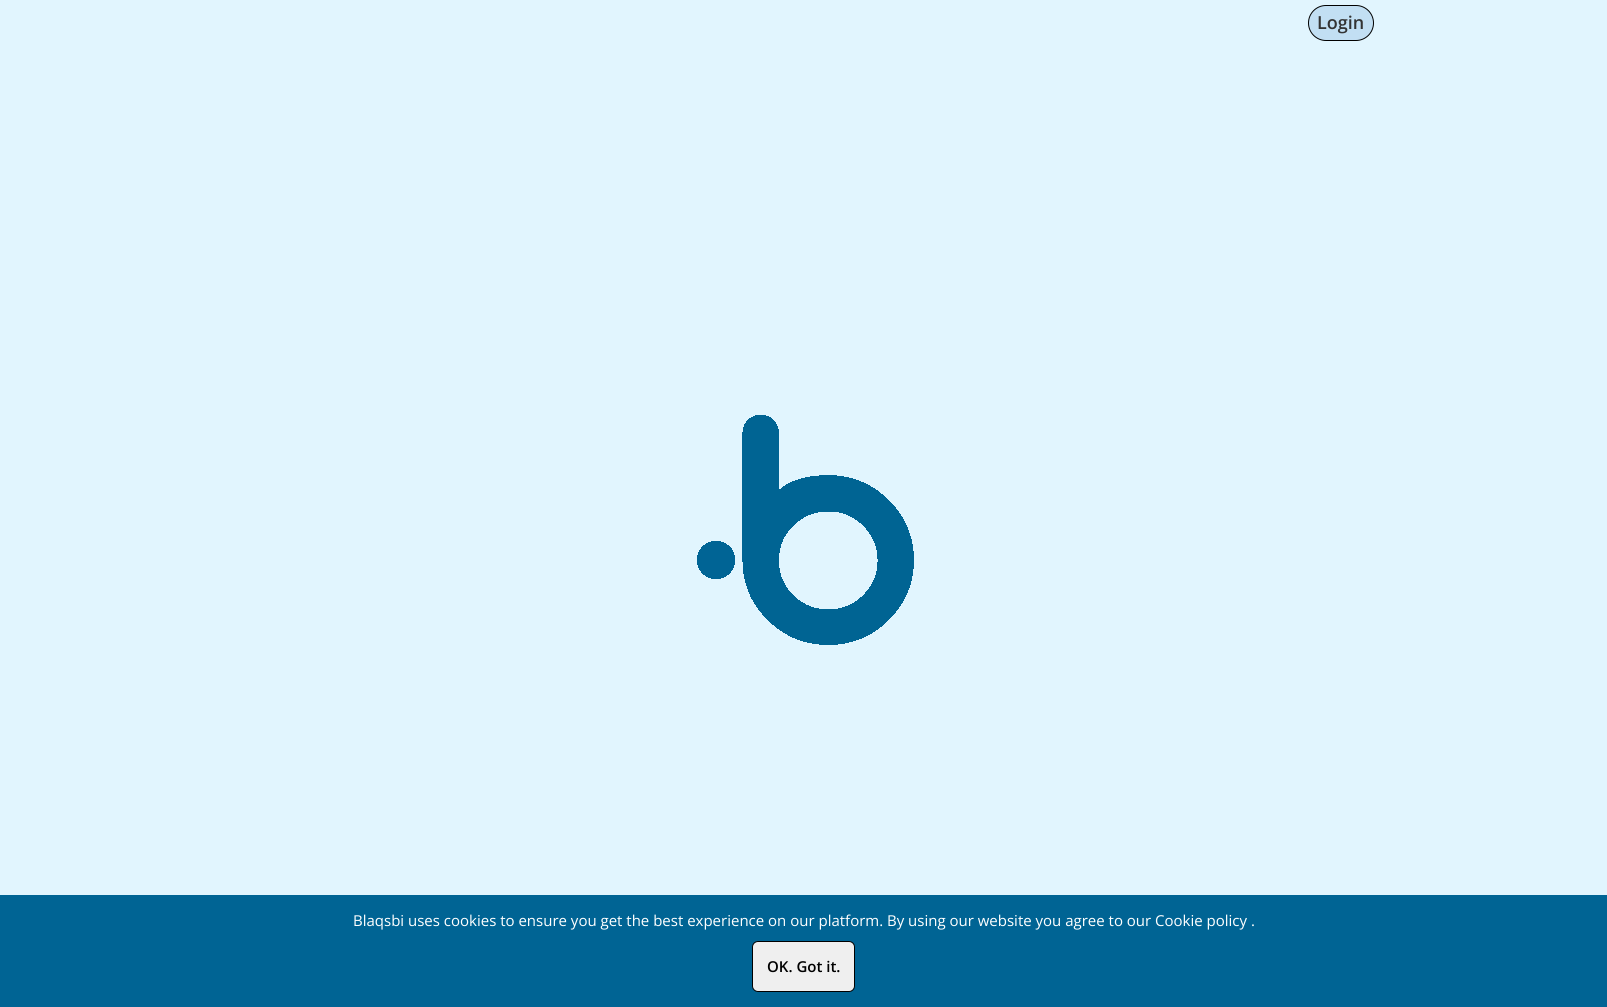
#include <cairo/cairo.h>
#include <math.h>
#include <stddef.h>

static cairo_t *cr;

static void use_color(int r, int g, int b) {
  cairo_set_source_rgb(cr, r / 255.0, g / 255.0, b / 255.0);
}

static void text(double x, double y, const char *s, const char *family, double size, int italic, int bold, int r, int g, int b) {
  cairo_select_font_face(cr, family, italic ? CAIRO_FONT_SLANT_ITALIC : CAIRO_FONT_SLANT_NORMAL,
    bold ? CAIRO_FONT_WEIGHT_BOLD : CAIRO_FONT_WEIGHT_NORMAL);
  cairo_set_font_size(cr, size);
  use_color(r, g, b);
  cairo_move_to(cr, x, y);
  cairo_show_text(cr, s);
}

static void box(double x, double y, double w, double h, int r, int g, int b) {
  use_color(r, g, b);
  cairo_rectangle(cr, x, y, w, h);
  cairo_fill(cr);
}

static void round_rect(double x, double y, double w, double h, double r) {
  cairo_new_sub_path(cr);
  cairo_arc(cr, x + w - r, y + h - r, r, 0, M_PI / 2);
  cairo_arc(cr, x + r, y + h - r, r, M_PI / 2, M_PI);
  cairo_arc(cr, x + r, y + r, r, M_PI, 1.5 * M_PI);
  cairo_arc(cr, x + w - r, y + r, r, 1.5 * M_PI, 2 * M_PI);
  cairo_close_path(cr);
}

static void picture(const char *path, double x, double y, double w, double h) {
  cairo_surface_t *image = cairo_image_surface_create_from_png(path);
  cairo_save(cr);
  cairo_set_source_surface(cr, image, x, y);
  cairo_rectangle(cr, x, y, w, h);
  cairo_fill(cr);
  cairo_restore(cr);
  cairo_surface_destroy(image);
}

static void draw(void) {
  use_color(225, 245, 254);
  cairo_paint(cr);
  use_color(194, 223, 243);
  round_rect(1308.5, 5.5, 65, 35, 17.5);
  cairo_fill_preserve(cr);
  use_color(0, 0, 0);
  cairo_set_line_width(cr, 1);
  cairo_stroke(cr);
  picture("img_01.png", 697, 415, 217, 230);
  box(0, 895, 1607, 112, 0, 100, 148);
  use_color(239, 239, 239);
  round_rect(752.5, 941.5, 102, 50, 5.5);
  cairo_fill_preserve(cr);
  use_color(0, 0, 0);
  cairo_stroke(cr);
  text(1317, 29, "Login", "Open Sans SemiBold", 18, 0, 0, 51, 51, 51);
  text(353, 926, "Blaqsbi uses cookies to ensure you get the best experience on our platform. By using our website you agree to our Cookie policy .", "Open Sans", 15, 0, 0, 255, 255, 255);
  text(767, 972, "OK. Got it.", "Open Sans SemiBold", 15, 0, 0, 0, 0, 0);
}

int main(void) {
  cairo_surface_t *surface = cairo_image_surface_create(CAIRO_FORMAT_RGB24, 1607, 1007);
  cr = cairo_create(surface);
  cairo_font_options_t *options = cairo_font_options_create();
  cairo_font_options_set_hint_metrics(options, CAIRO_HINT_METRICS_OFF);
  cairo_font_options_set_hint_style(options, CAIRO_HINT_STYLE_NONE);
  cairo_set_font_options(cr, options);
  cairo_set_miter_limit(cr, 4);
  draw();
  cairo_surface_write_to_png(surface, "out.png");
  cairo_font_options_destroy(options);
  cairo_destroy(cr);
  cairo_surface_destroy(surface);
  return 0;
}
